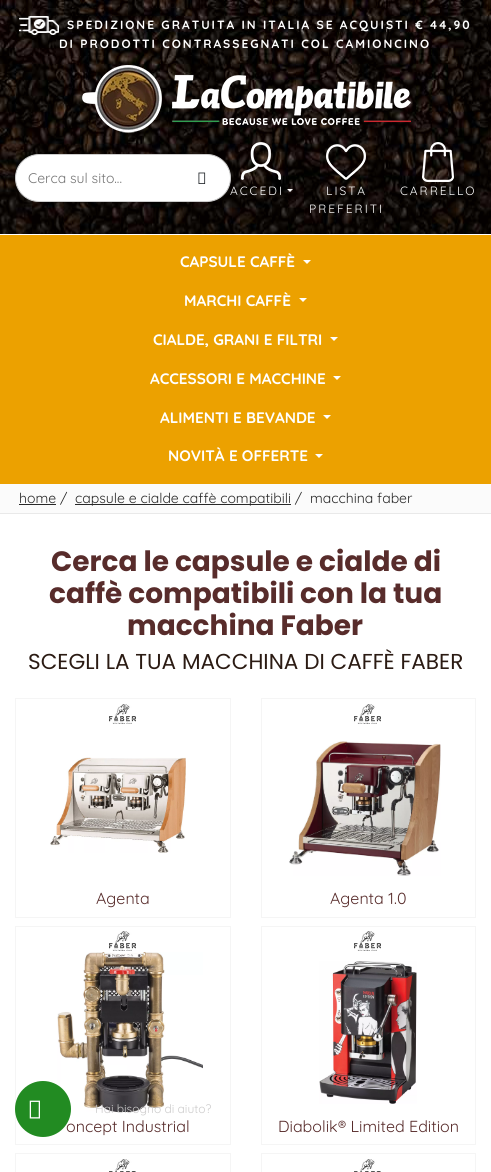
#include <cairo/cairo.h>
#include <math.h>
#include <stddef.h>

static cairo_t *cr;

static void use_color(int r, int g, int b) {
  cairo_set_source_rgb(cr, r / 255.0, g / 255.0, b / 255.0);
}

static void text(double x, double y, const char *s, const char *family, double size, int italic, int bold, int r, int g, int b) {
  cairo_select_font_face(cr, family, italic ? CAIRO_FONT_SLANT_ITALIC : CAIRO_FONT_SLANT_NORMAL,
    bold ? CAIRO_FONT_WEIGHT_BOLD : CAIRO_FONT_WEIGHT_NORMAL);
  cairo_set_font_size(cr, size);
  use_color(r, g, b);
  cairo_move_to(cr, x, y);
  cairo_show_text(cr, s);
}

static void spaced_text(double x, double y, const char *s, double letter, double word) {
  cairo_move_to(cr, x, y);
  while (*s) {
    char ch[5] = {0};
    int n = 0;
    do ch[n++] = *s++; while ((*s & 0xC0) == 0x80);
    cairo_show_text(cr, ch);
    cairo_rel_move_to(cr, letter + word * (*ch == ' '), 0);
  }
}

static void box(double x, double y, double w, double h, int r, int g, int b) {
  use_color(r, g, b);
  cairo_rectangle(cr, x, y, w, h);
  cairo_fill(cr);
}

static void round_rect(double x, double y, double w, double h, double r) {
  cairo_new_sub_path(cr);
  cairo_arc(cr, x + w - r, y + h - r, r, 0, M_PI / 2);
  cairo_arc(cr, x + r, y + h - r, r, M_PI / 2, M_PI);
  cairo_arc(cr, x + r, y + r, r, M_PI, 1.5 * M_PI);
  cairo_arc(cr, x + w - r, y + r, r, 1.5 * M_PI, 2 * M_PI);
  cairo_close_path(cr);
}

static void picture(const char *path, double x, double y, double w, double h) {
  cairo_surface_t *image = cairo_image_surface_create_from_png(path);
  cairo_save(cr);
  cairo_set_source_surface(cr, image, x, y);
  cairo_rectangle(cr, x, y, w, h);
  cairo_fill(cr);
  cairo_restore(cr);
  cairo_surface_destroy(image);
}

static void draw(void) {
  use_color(255, 255, 255);
  cairo_paint(cr);
  picture("img_01.png", 0, 0, 491, 234);
  picture("img_02.png", 19, 16, 40, 19);
  picture("img_03.png", 82, 65, 329, 68);
  use_color(255, 255, 255);
  round_rect(15.5, 154.5, 215, 47, 23.5);
  cairo_fill_preserve(cr);
  use_color(204, 204, 204);
  cairo_set_line_width(cr, 1);
  cairo_stroke(cr);
  picture("img_04.png", 198, 172, 8, 12);
  picture("img_05.png", 241, 142, 40, 38);
  use_color(255, 255, 255);
  cairo_new_path(cr);
  cairo_move_to(cr, 287, 189);
  cairo_line_to(cr, 293, 189);
  cairo_line_to(cr, 290, 192);
  cairo_close_path(cr);
  cairo_fill(cr);
  picture("img_06.png", 326, 144, 40, 36);
  picture("img_07.png", 422, 142, 32, 40);
  box(0, 235, 491, 249, 236, 161, 0);
  use_color(255, 255, 255);
  cairo_new_path(cr);
  cairo_move_to(cr, 303, 260);
  cairo_line_to(cr, 311, 260);
  cairo_line_to(cr, 307, 264);
  cairo_close_path(cr);
  cairo_fill(cr);
  cairo_new_path(cr);
  cairo_move_to(cr, 299, 298);
  cairo_line_to(cr, 307, 298);
  cairo_line_to(cr, 303, 302);
  cairo_close_path(cr);
  cairo_fill(cr);
  cairo_new_path(cr);
  cairo_move_to(cr, 330, 337);
  cairo_line_to(cr, 338, 337);
  cairo_line_to(cr, 334, 341);
  cairo_close_path(cr);
  cairo_fill(cr);
  cairo_new_path(cr);
  cairo_move_to(cr, 333, 376);
  cairo_line_to(cr, 341, 376);
  cairo_line_to(cr, 337, 380);
  cairo_close_path(cr);
  cairo_fill(cr);
  cairo_new_path(cr);
  cairo_move_to(cr, 323, 415);
  cairo_line_to(cr, 331, 415);
  cairo_line_to(cr, 327, 419);
  cairo_close_path(cr);
  cairo_fill(cr);
  cairo_new_path(cr);
  cairo_move_to(cr, 315, 454);
  cairo_line_to(cr, 323, 454);
  cairo_line_to(cr, 319, 458);
  cairo_close_path(cr);
  cairo_fill(cr);
  box(0, 484, 491, 29, 251, 251, 251);
  box(0, 513, 491, 1, 233, 233, 233);
  box(19, 504, 37, 1, 40, 40, 40);
  box(75, 504, 216, 1, 40, 40, 40);
  cairo_rectangle(cr, 15.5, 698.5, 215, 219);
  use_color(245, 245, 245);
  cairo_stroke(cr);
  picture("img_08.png", 109, 704, 27, 20);
  picture("img_09.png", 50, 757, 136, 96);
  cairo_rectangle(cr, 261.5, 698.5, 214, 219);
  cairo_stroke(cr);
  picture("img_08.png", 354, 704, 27, 20);
  picture("img_10.png", 289, 741, 152, 135);
  cairo_rectangle(cr, 15.5, 926.5, 215, 218);
  cairo_stroke(cr);
  picture("img_08.png", 109, 931, 27, 20);
  picture("img_11.png", 57, 952, 146, 160);
  cairo_rectangle(cr, 261.5, 926.5, 214, 218);
  cairo_stroke(cr);
  picture("img_08.png", 354, 931, 27, 20);
  picture("img_12.png", 319, 961, 98, 143);
  cairo_rectangle(cr, 15.5, 1153.5, 215, 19);
  cairo_stroke(cr);
  picture("img_13.png", 109, 1159, 27, 13);
  cairo_rectangle(cr, 261.5, 1153.5, 214, 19);
  cairo_stroke(cr);
  picture("img_13.png", 354, 1159, 27, 13);
  cairo_select_font_face(cr, "Quicksand", CAIRO_FONT_SLANT_NORMAL, CAIRO_FONT_WEIGHT_BOLD);
  cairo_set_font_size(cr, 12);
  use_color(255, 255, 255);
  spaced_text(67, 29, "SPEDIZIONE GRATUITA IN ITALIA SE ACQUISTI € 44,90", 2, 0);
  spaced_text(59, 48, "DI PRODOTTI CONTRASSEGNATI COL CAMIONCINO", 2, 0);
  text(28, 183, "Cerca sul sito...", "Quicksand", 14, 0, 0, 117, 117, 117);
  cairo_set_font_size(cr, 12);
  use_color(255, 255, 255);
  spaced_text(230, 195, "ACCEDI", 2, 0);
  spaced_text(326, 195, "LISTA", 2, 0);
  spaced_text(309, 213, "PREFERITI", 2, 0);
  spaced_text(400, 195, "CARRELLO", 2, 0);
  text(180, 267, "CAPSULE CAFFÈ", "Quicksand", 15.25, 0, 1, 255, 255, 255);
  text(184, 306, "MARCHI CAFFÈ", "Quicksand", 15.25, 0, 1, 255, 255, 255);
  text(153, 345, "CIALDE, GRANI E FILTRI", "Quicksand", 15.25, 0, 1, 255, 255, 255);
  text(150, 384, "ACCESSORI E MACCHINE", "Quicksand", 15.25, 0, 1, 255, 255, 255);
  text(160, 423, "ALIMENTI E BEVANDE", "Quicksand", 15.25, 0, 1, 255, 255, 255);
  text(168, 461, "NOVITÀ E OFFERTE", "Quicksand", 15.25, 0, 1, 255, 255, 255);
  text(19, 503, "home /", "Quicksand", 14, 0, 0, 40, 40, 40);
  text(75, 503, "capsule e cialde caffè compatibili /", "Quicksand", 14, 0, 0, 40, 40, 40);
  text(310, 503, "macchina faber", "Quicksand", 14, 0, 0, 40, 40, 40);
  text(51, 571, "Cerca le capsule e cialde di", "Poppins", 28, 0, 1, 88, 44, 43);
  text(49, 603, "caffè compatibili con la tua", "Poppins", 28, 0, 1, 88, 44, 43);
  text(127, 635, "macchina Faber", "Poppins", 28, 0, 1, 88, 44, 43);
  text(28, 669, "SCEGLI LA TUA MACCHINA DI CAFFÈ FABER", "Poppins", 21.6, 0, 0, 43, 27, 19);
  text(96, 904, "Agenta", "Quicksand", 16, 0, 0, 88, 44, 43);
  text(330, 904, "Agenta 1.0", "Quicksand", 16, 0, 0, 88, 44, 43);
  text(66, 1132, "oncept Industrial", "Quicksand", 16, 0, 0, 88, 44, 43);
  text(278, 1132, "Diabolik® Limited Edition", "Quicksand", 16, 0, 0, 88, 44, 43);
  use_color(34, 139, 34);
  cairo_new_path(cr);
  cairo_arc(cr, 43, 1109, 28, 0, 2 * M_PI);
  cairo_fill(cr);
  picture("img_14.png", 29, 1100, 11, 19);
  text(95, 1113, "Hai bisogno di aiuto?", "Quicksand", 12, 0, 0, 204, 203, 203);
}

int main(void) {
  cairo_surface_t *surface = cairo_image_surface_create(CAIRO_FORMAT_RGB24, 491, 1172);
  cr = cairo_create(surface);
  cairo_font_options_t *options = cairo_font_options_create();
  cairo_font_options_set_hint_metrics(options, CAIRO_HINT_METRICS_OFF);
  cairo_font_options_set_hint_style(options, CAIRO_HINT_STYLE_NONE);
  cairo_set_font_options(cr, options);
  cairo_set_miter_limit(cr, 4);
  draw();
  cairo_surface_write_to_png(surface, "out.png");
  cairo_font_options_destroy(options);
  cairo_destroy(cr);
  cairo_surface_destroy(surface);
  return 0;
}
